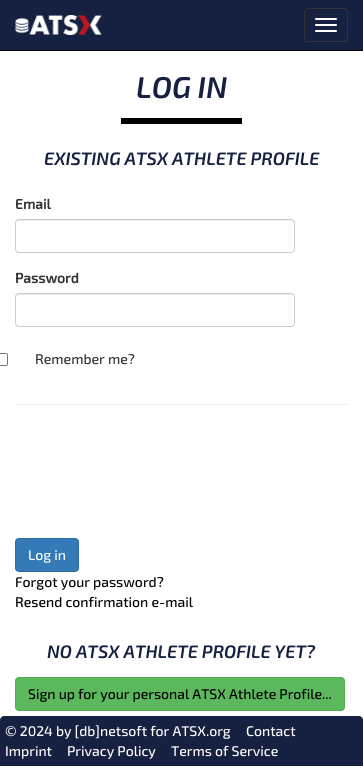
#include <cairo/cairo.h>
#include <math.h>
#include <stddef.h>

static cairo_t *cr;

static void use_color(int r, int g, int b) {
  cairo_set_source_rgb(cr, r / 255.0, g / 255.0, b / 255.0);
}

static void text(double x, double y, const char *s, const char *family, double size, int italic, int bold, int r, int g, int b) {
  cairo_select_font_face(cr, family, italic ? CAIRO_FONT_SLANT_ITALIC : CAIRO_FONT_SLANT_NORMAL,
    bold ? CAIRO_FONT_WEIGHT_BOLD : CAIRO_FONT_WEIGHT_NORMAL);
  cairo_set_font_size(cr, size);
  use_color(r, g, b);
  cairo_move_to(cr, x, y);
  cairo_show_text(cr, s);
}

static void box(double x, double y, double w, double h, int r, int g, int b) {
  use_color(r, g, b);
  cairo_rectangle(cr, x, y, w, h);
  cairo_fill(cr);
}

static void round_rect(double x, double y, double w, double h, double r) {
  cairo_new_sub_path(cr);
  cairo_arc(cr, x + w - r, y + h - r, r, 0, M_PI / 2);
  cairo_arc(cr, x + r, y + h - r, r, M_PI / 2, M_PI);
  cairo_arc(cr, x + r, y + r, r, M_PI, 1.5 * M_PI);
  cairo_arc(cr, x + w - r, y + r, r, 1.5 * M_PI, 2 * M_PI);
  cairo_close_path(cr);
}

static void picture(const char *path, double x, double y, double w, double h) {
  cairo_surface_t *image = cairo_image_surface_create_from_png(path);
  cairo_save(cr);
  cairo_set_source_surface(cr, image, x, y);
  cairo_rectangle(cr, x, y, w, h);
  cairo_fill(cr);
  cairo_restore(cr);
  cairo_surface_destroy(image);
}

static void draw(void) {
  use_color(255, 255, 255);
  cairo_paint(cr);
  box(0, 0, 363, 50, 22, 33, 65);
  box(0, 50, 363, 1, 8, 8, 8);
  picture("img_01.png", 15, 15, 87, 20);
  round_rect(304.5, 8.5, 43, 33, 3.5);
  use_color(51, 51, 51);
  cairo_set_line_width(cr, 1);
  cairo_stroke(cr);
  use_color(255, 255, 255);
  round_rect(315, 18, 22, 2, 1);
  cairo_fill(cr);
  round_rect(315, 24, 22, 2, 1);
  cairo_fill(cr);
  round_rect(315, 30, 22, 2, 1);
  cairo_fill(cr);
  box(121, 118, 121, 6, 0, 0, 0);
  use_color(236, 236, 236);
  cairo_new_path(cr);
  cairo_move_to(cr, 19, 221);
  cairo_line_to(cr, 291, 221);
  cairo_curve_to(cr, 293, 221, 294, 222, 294, 224);
  cairo_line_to(cr, 294, 223);
  cairo_curve_to(cr, 294, 221, 293, 220, 291, 220);
  cairo_line_to(cr, 19, 220);
  cairo_curve_to(cr, 17, 220, 16, 221, 16, 223);
  cairo_line_to(cr, 16, 224);
  cairo_curve_to(cr, 16, 222, 17, 221, 19, 221);
  cairo_close_path(cr);
  cairo_fill(cr);
  round_rect(15.5, 219.5, 279, 33, 3.5);
  use_color(204, 204, 204);
  cairo_stroke(cr);
  use_color(236, 236, 236);
  cairo_new_path(cr);
  cairo_move_to(cr, 19, 295);
  cairo_line_to(cr, 291, 295);
  cairo_curve_to(cr, 293, 295, 294, 296, 294, 298);
  cairo_line_to(cr, 294, 297);
  cairo_curve_to(cr, 294, 295, 293, 294, 291, 294);
  cairo_line_to(cr, 19, 294);
  cairo_curve_to(cr, 17, 294, 16, 295, 16, 297);
  cairo_line_to(cr, 16, 298);
  cairo_curve_to(cr, 16, 296, 17, 295, 19, 295);
  cairo_close_path(cr);
  cairo_fill(cr);
  round_rect(15.5, 293.5, 279, 33, 3.5);
  use_color(204, 204, 204);
  cairo_stroke(cr);
  round_rect(-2.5, 353.5, 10, 12, 1.5);
  use_color(118, 118, 118);
  cairo_stroke(cr);
  box(15, 404, 333, 1, 238, 238, 238);
  use_color(51, 122, 183);
  round_rect(15.5, 538.5, 63, 33, 3.5);
  cairo_fill_preserve(cr);
  use_color(46, 109, 164);
  cairo_stroke(cr);
  use_color(92, 184, 92);
  round_rect(15.5, 677.5, 329, 33, 3.5);
  cairo_fill_preserve(cr);
  use_color(76, 174, 76);
  cairo_stroke(cr);
  use_color(22, 33, 65);
  cairo_new_path(cr);
  cairo_move_to(cr, 4, 716);
  cairo_line_to(cr, 359, 716);
  cairo_curve_to(cr, 361, 716, 363, 718, 363, 720);
  cairo_line_to(cr, 363, 766);
  cairo_line_to(cr, 0, 766);
  cairo_line_to(cr, 0, 720);
  cairo_curve_to(cr, 0, 718, 2, 716, 4, 716);
  cairo_close_path(cr);
  cairo_fill(cr);
  text(136, 98, "LOG IN", "Exo 2 SemiBold", 30, 1, 0, 22, 33, 65);
  text(44, 165, "EXISTING ATSX ATHLETE PROFILE", "Exo 2 SemiBold", 18, 1, 0, 22, 33, 65);
  text(15, 209, "Email", "Exo 2", 14, 0, 1, 51, 51, 51);
  text(15, 283, "Password", "Exo 2", 14, 0, 1, 51, 51, 51);
  text(35, 364, "Remember me?", "Exo 2 Medium", 14, 0, 0, 51, 51, 51);
  text(28, 560, "Log in", "Exo 2 Medium", 14, 0, 0, 255, 255, 255);
  text(15, 587, "Forgot your password?", "Exo 2 Medium", 14, 0, 0, 0, 0, 0);
  text(15, 607, "Resend confirmation e-mail", "Exo 2 Medium", 14, 0, 0, 0, 0, 0);
  text(47, 658, "NO ATSX ATHLETE PROFILE YET?", "Exo 2 SemiBold", 18, 1, 0, 22, 33, 65);
  text(28, 699, "Sign up for your personal ATSX Athlete Profile...", "Exo 2 Medium", 14, 0, 0, 0, 0, 0);
  text(5, 736, "© 2024 by [db]netsoft for ATSX.org", "Exo 2 Medium", 14, 0, 0, 255, 255, 255);
  text(246, 736, "Contact", "Exo 2 Medium", 14, 0, 0, 255, 255, 255);
  text(5, 756, "Imprint", "Exo 2 Medium", 14, 0, 0, 255, 255, 255);
  text(67, 756, "Privacy Policy", "Exo 2 Medium", 14, 0, 0, 255, 255, 255);
  text(171, 756, "Terms of Service", "Exo 2 Medium", 14, 0, 0, 255, 255, 255);
}

int main(void) {
  cairo_surface_t *surface = cairo_image_surface_create(CAIRO_FORMAT_RGB24, 363, 771);
  cr = cairo_create(surface);
  cairo_font_options_t *options = cairo_font_options_create();
  cairo_font_options_set_hint_metrics(options, CAIRO_HINT_METRICS_OFF);
  cairo_font_options_set_hint_style(options, CAIRO_HINT_STYLE_NONE);
  cairo_set_font_options(cr, options);
  cairo_set_miter_limit(cr, 4);
  draw();
  cairo_surface_write_to_png(surface, "out.png");
  cairo_font_options_destroy(options);
  cairo_destroy(cr);
  cairo_surface_destroy(surface);
  return 0;
}
